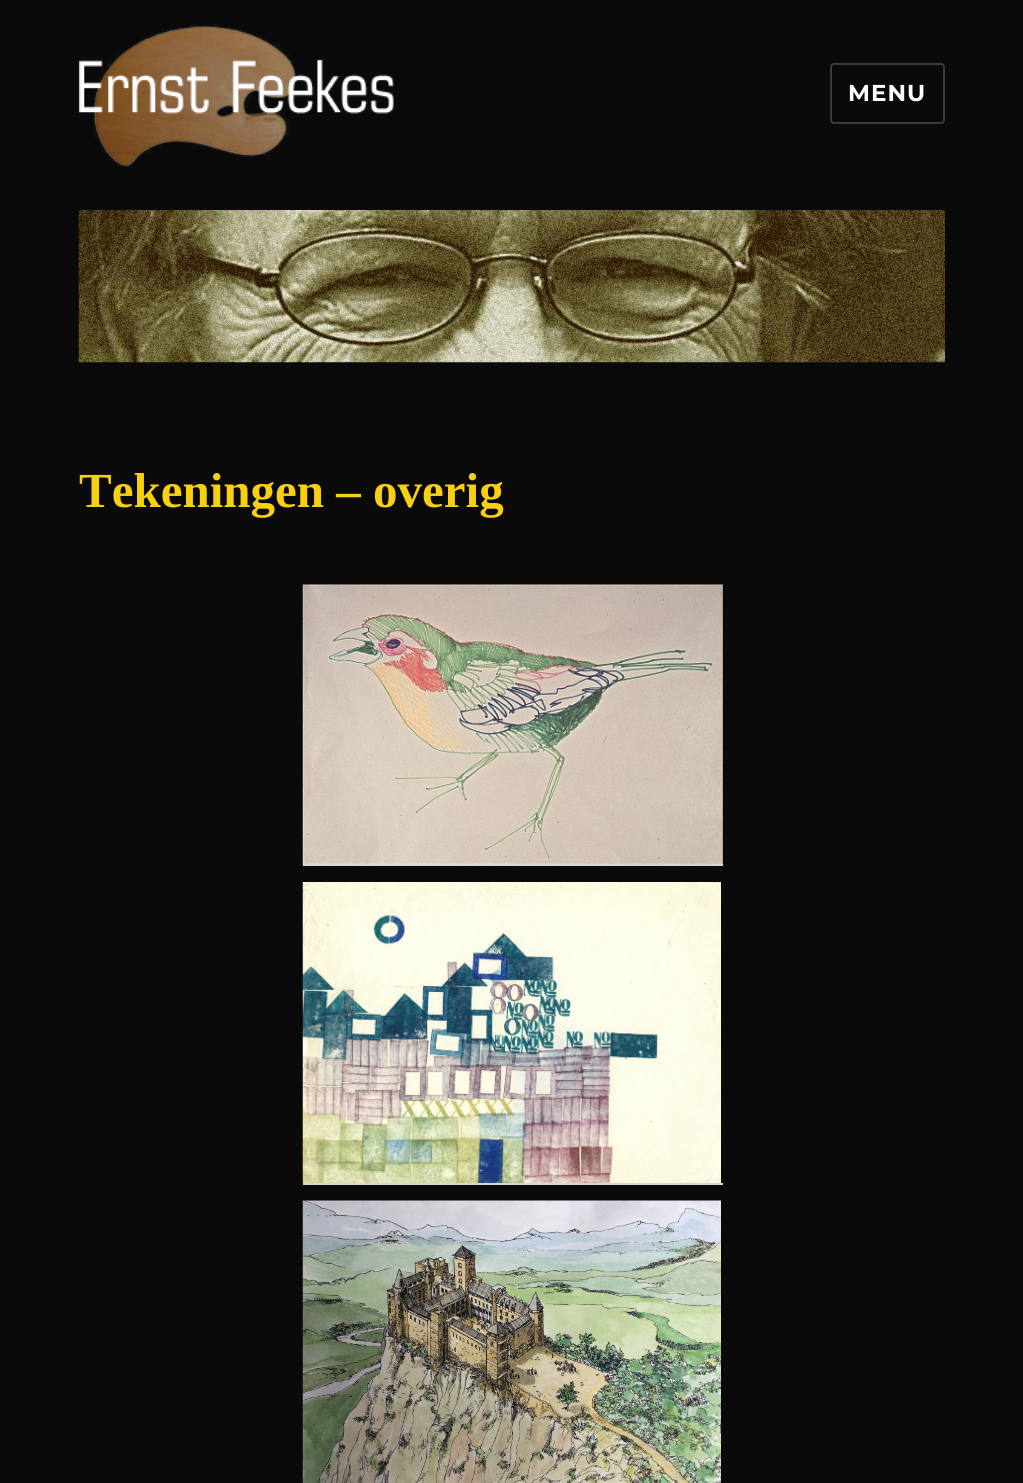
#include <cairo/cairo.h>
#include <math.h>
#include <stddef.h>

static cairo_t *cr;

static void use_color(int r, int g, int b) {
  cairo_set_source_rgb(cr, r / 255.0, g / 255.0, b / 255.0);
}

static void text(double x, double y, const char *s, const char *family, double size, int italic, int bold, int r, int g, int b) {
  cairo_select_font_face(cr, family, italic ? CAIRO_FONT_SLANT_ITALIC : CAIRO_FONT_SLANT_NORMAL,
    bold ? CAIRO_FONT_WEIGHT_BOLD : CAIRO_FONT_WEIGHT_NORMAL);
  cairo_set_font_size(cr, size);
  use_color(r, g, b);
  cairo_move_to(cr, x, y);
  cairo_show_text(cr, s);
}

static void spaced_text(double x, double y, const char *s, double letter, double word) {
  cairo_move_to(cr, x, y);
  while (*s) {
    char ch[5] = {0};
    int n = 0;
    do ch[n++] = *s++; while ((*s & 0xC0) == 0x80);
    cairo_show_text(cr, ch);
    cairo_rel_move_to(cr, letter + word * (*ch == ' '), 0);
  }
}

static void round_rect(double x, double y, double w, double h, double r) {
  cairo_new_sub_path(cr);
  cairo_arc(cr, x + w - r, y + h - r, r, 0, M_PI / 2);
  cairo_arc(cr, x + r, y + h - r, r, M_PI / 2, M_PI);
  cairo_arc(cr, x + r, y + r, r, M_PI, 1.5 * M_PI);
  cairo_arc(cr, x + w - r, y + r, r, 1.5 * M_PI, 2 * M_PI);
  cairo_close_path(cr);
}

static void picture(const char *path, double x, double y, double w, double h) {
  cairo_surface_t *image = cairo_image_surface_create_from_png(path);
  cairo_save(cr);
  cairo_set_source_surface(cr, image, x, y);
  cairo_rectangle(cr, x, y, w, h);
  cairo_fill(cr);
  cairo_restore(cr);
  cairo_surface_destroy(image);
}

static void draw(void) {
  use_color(10, 10, 10);
  cairo_paint(cr);
  picture("img_01.png", 78, 24, 316, 143);
  round_rect(831, 64, 113, 59, 3);
  use_color(59, 59, 59);
  cairo_stroke(cr);
  picture("img_02.png", 78, 210, 867, 153);
  use_color(214, 214, 214);
  cairo_new_path(cr);
  cairo_move_to(cr, 303, 864);
  cairo_line_to(cr, 303, 866);
  cairo_line_to(cr, 723, 866);
  cairo_line_to(cr, 723, 586);
  cairo_line_to(cr, 723, 864);
  cairo_close_path(cr);
  cairo_fill(cr);
  picture("img_03.png", 302, 584, 421, 281);
  cairo_new_path(cr);
  cairo_move_to(cr, 303, 1183);
  cairo_line_to(cr, 303, 1185);
  cairo_line_to(cr, 723, 1185);
  cairo_line_to(cr, 723, 884);
  cairo_line_to(cr, 723, 1183);
  cairo_close_path(cr);
  cairo_fill(cr);
  picture("img_04.png", 302, 882, 419, 301);
  picture("img_05.png", 302, 1200, 419, 283);
  cairo_select_font_face(cr, "Montserrat", CAIRO_FONT_SLANT_NORMAL, CAIRO_FONT_WEIGHT_BOLD);
  cairo_set_font_size(cr, 23);
  use_color(255, 255, 255);
  spaced_text(848, 101, "MENU", 1, 0);
  text(79, 507, "Tekeningen – overig", "Liberation Serif", 49, 0, 1, 249, 208, 16);
}

int main(void) {
  cairo_surface_t *surface = cairo_image_surface_create(CAIRO_FORMAT_RGB24, 1023, 1483);
  cr = cairo_create(surface);
  cairo_font_options_t *options = cairo_font_options_create();
  cairo_font_options_set_hint_metrics(options, CAIRO_HINT_METRICS_OFF);
  cairo_font_options_set_hint_style(options, CAIRO_HINT_STYLE_NONE);
  cairo_set_font_options(cr, options);
  cairo_set_miter_limit(cr, 4);
  draw();
  cairo_surface_write_to_png(surface, "out.png");
  cairo_font_options_destroy(options);
  cairo_destroy(cr);
  cairo_surface_destroy(surface);
  return 0;
}
